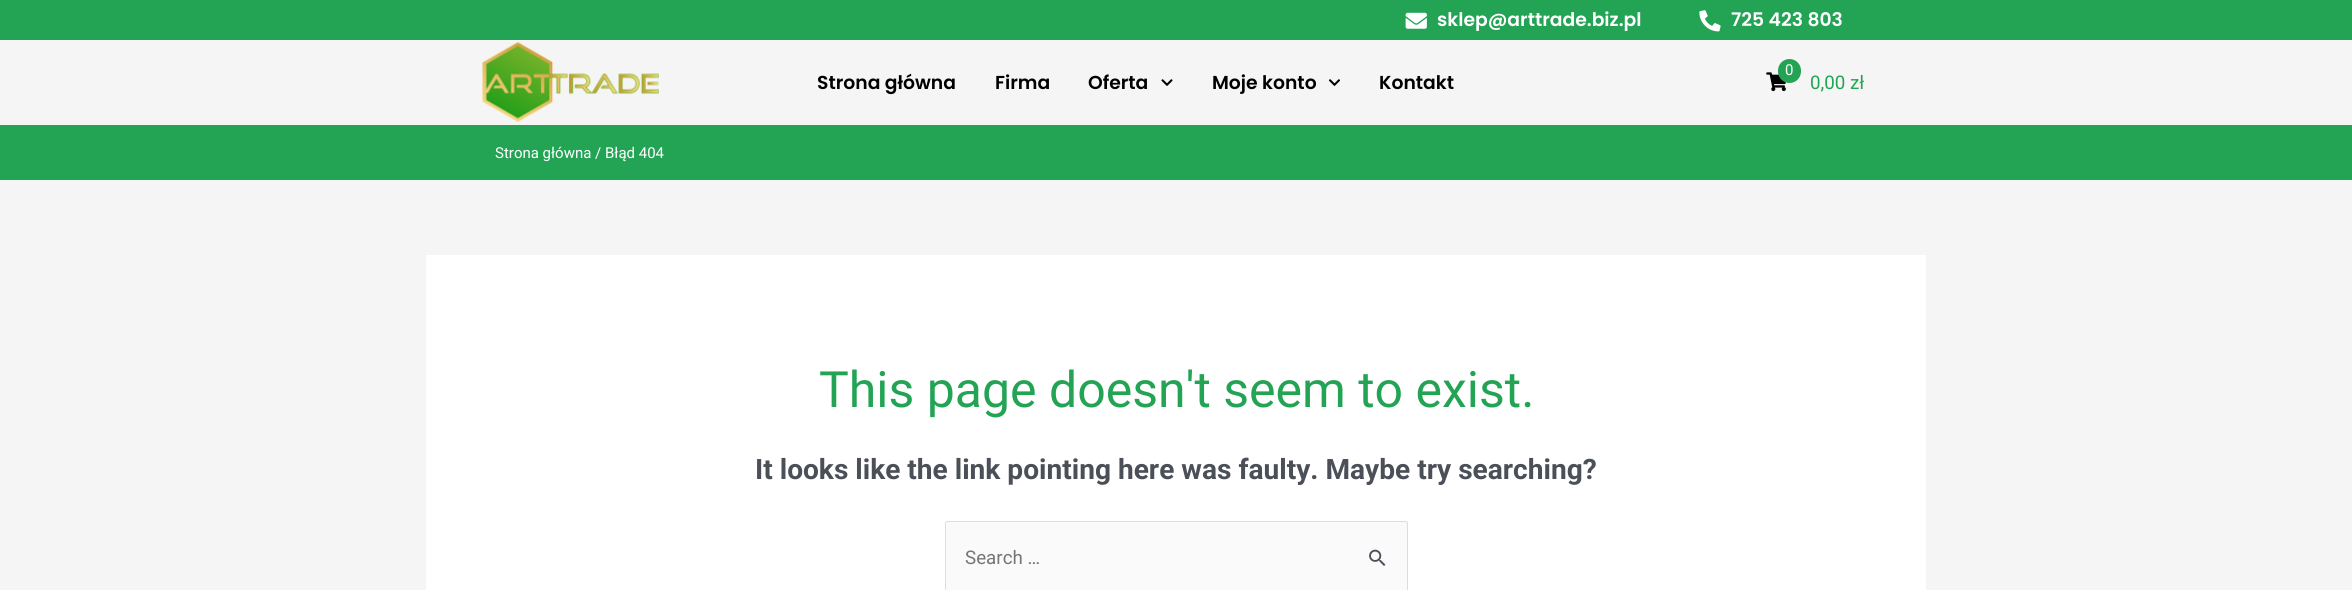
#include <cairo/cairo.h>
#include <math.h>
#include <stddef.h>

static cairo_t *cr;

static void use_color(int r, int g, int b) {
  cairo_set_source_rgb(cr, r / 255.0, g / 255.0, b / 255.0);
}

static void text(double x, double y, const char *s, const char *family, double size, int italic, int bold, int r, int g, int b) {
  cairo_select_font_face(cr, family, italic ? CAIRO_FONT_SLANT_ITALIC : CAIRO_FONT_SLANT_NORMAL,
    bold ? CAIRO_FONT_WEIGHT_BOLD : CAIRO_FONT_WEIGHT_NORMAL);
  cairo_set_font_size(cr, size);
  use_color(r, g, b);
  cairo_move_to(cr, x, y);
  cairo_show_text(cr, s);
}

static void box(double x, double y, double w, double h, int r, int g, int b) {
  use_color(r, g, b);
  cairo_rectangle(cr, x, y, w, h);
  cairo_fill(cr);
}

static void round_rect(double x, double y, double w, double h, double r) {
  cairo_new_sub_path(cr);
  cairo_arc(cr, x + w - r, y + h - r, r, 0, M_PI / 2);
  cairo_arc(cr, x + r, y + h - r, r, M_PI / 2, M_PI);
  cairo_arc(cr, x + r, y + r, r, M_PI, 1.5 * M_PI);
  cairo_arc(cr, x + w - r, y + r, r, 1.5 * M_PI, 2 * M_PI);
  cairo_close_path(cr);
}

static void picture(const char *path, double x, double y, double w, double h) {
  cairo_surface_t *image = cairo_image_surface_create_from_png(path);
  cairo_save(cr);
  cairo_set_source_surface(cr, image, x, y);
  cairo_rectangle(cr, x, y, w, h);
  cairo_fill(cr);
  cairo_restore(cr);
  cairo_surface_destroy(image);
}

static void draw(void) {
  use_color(245, 245, 245);
  cairo_paint(cr);
  box(0, 0, 2352, 40, 35, 164, 85);
  picture("img_01.png", 1405, 12, 22, 17);
  picture("img_02.png", 1699, 10, 22, 22);
  picture("img_03.png", 482, 42, 177, 81);
  picture("img_04.png", 1161, 79, 12, 7);
  picture("img_05.png", 1328, 79, 12, 7);
  picture("img_06.png", 1766, 72, 20, 20);
  round_rect(1778, 59, 23, 24, 11.5);
  cairo_fill(cr);
  box(0, 125, 2352, 55, 35, 164, 85);
  box(426, 255, 1500, 335, 255, 255, 255);
  use_color(250, 250, 250);
  round_rect(945.5, 521.5, 462, 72, 2);
  cairo_fill_preserve(cr);
  use_color(221, 221, 221);
  cairo_set_line_width(cr, 1);
  cairo_stroke(cr);
  picture("img_07.png", 1369, 549, 17, 17);
  text(1437, 26, "sklep@arttrade.biz.pl", "Poppins SemiBold", 18.75, 0, 0, 255, 255, 255);
  text(1731, 26, "725 423 803", "Poppins SemiBold", 18.75, 0, 0, 255, 255, 255);
  text(817, 89, "Strona główna", "Poppins SemiBold", 18.75, 0, 0, 0, 0, 0);
  text(995, 89, "Firma", "Poppins SemiBold", 18.75, 0, 0, 0, 0, 0);
  text(1088, 89, "Oferta", "Poppins SemiBold", 18.75, 0, 0, 0, 0, 0);
  text(1212, 89, "Moje konto", "Poppins SemiBold", 18.75, 0, 0, 0, 0, 0);
  text(1379, 89, "Kontakt", "Poppins SemiBold", 18.75, 0, 0, 0, 0, 0);
  text(1785, 75, "0", "Roboto", 15, 0, 0, 255, 255, 255);
  text(1810, 89, "0,00 zł", "Roboto", 18.75, 0, 0, 35, 164, 85);
  text(495, 158, "Strona główna / Błąd 404", "Roboto", 15, 0, 0, 255, 255, 255);
  text(819, 407, "This page doesn't seem to exist.", "Roboto", 50, 0, 0, 35, 164, 85);
  text(755, 479, "It looks like the link pointing here was faulty. Maybe try searching?", "Roboto", 28.1, 0, 1, 75, 79, 88);
  text(965, 564, "Search …", "Roboto", 18.75, 0, 0, 117, 117, 117);
}

int main(void) {
  cairo_surface_t *surface = cairo_image_surface_create(CAIRO_FORMAT_RGB24, 2352, 590);
  cr = cairo_create(surface);
  cairo_font_options_t *options = cairo_font_options_create();
  cairo_font_options_set_hint_metrics(options, CAIRO_HINT_METRICS_OFF);
  cairo_font_options_set_hint_style(options, CAIRO_HINT_STYLE_NONE);
  cairo_set_font_options(cr, options);
  cairo_set_miter_limit(cr, 4);
  draw();
  cairo_surface_write_to_png(surface, "out.png");
  cairo_font_options_destroy(options);
  cairo_destroy(cr);
  cairo_surface_destroy(surface);
  return 0;
}
